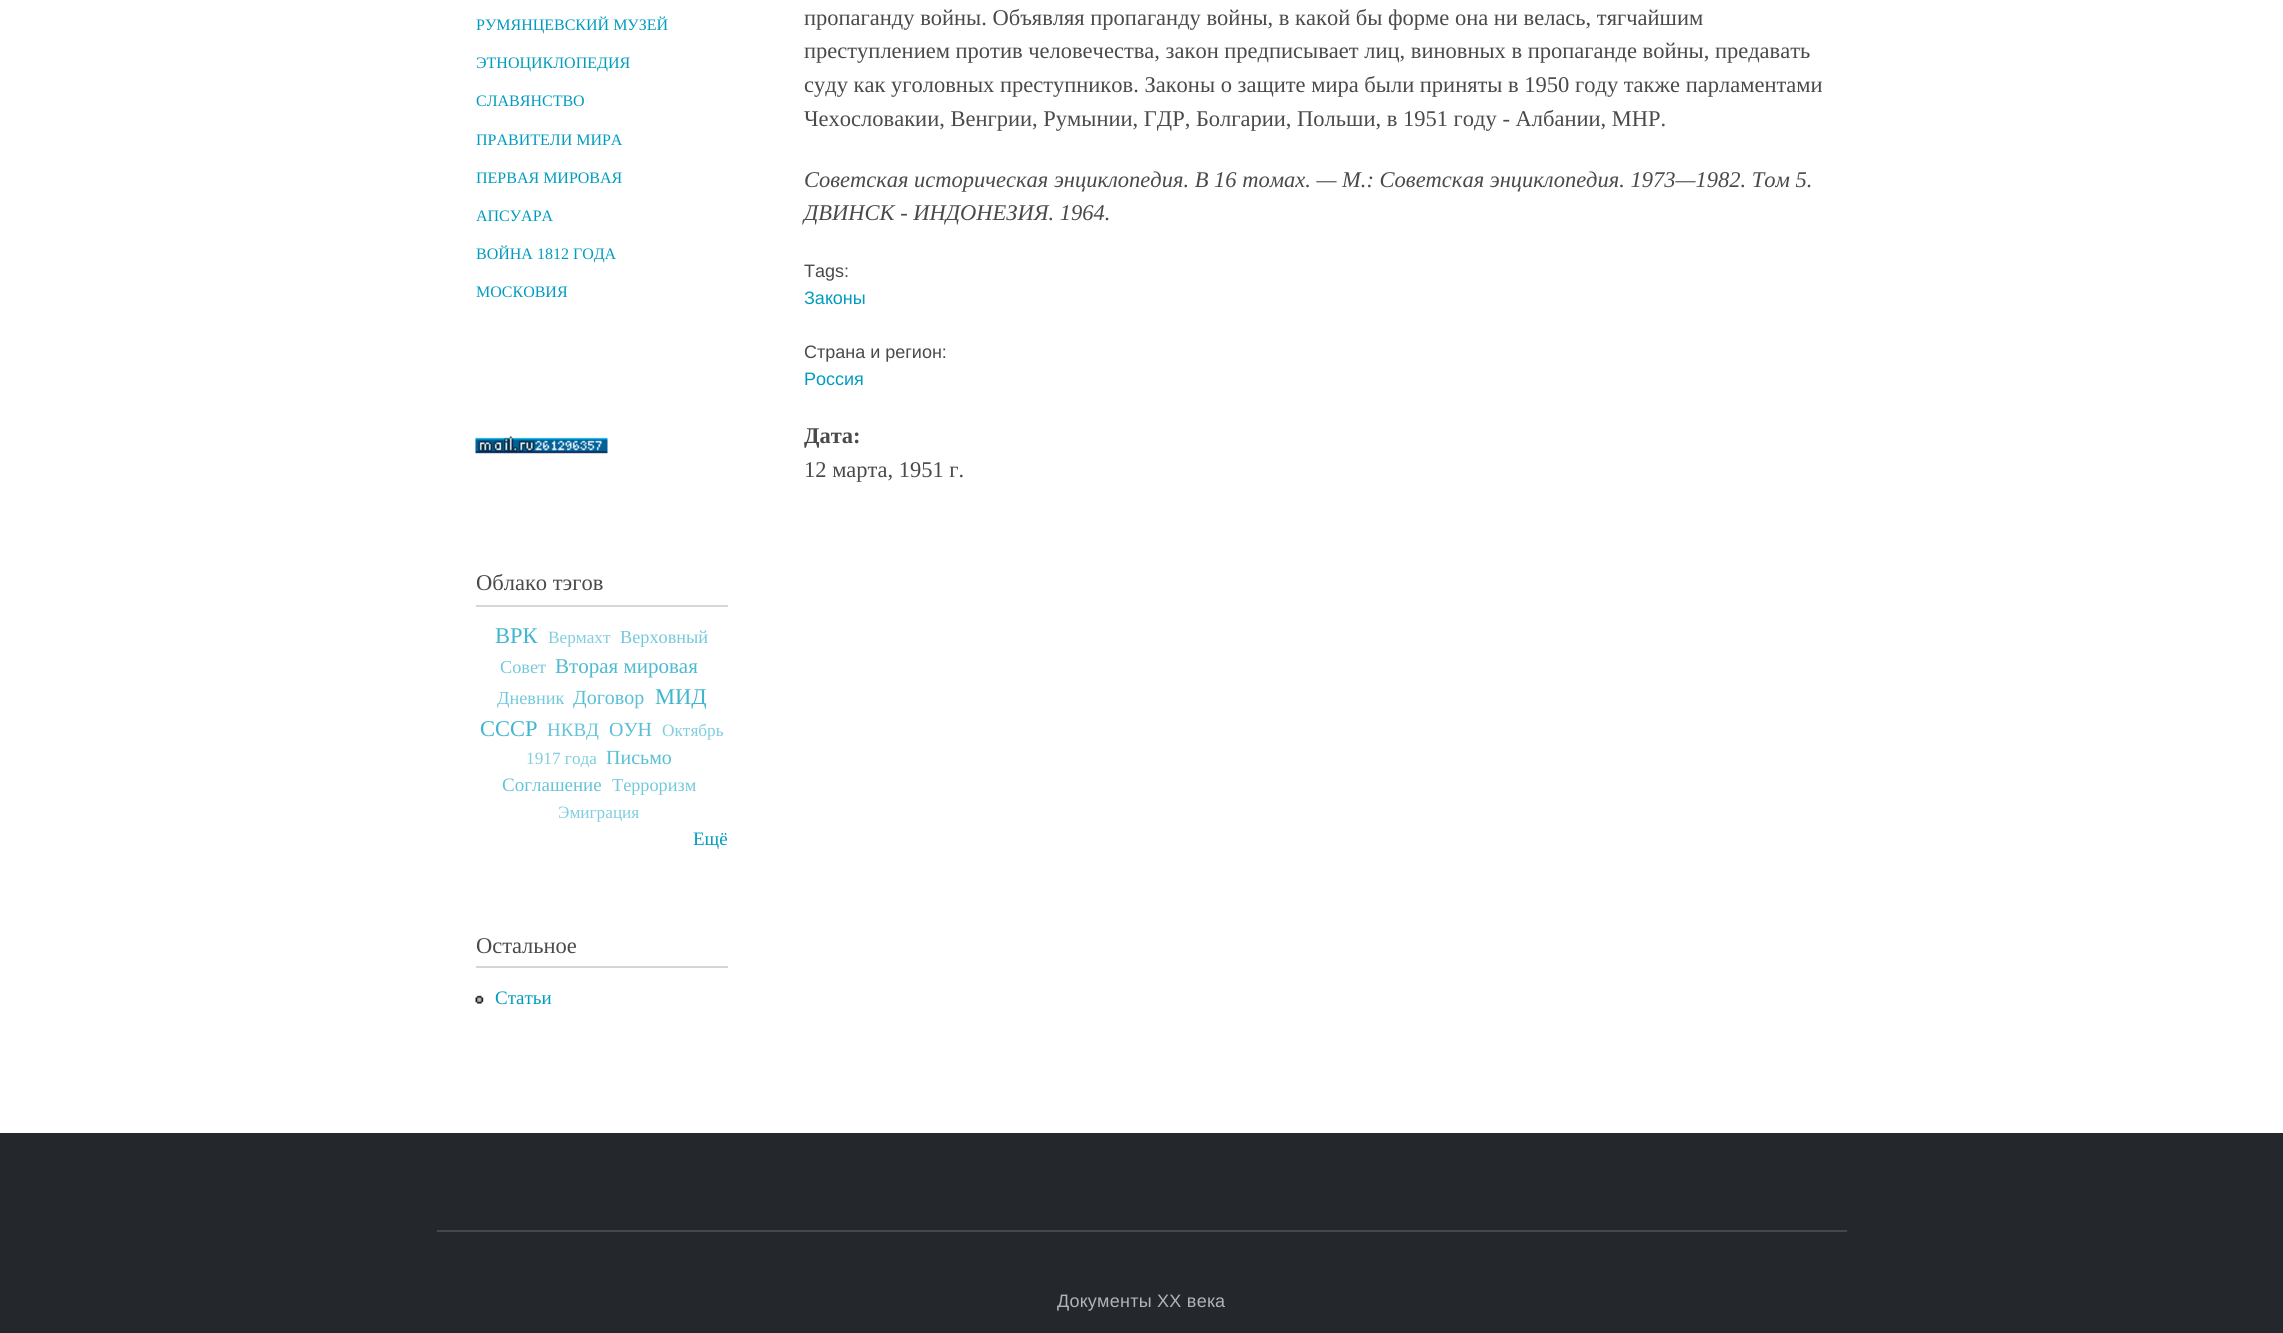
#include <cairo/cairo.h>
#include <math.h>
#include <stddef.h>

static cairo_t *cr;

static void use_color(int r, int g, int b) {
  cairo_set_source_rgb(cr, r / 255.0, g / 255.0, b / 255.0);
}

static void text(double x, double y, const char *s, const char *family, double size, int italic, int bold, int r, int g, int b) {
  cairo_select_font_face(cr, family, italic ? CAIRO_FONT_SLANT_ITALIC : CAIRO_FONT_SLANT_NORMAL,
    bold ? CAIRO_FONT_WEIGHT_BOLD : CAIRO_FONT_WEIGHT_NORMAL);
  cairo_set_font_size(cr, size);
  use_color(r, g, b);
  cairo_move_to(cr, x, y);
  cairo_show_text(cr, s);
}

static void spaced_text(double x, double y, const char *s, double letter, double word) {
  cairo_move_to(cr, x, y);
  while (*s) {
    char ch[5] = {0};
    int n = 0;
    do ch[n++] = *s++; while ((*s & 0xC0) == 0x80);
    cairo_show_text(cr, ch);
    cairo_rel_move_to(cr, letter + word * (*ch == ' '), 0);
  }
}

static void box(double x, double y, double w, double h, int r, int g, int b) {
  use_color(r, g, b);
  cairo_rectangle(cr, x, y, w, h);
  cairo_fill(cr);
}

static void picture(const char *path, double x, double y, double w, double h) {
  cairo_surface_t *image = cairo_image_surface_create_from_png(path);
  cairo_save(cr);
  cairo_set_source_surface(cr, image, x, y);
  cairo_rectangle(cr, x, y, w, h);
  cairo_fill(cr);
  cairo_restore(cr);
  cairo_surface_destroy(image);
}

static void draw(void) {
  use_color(255, 255, 255);
  cairo_paint(cr);
  picture("img_01.png", 475, 436, 133, 18);
  box(476, 605, 252, 2, 214, 214, 214);
  box(476, 966, 252, 2, 214, 214, 214);
  picture("img_02.png", 475, 995, 9, 9);
  box(0, 1133, 2283, 200, 36, 39, 44);
  box(437, 1230, 1410, 2, 69, 71, 76);
  text(476, 30, "РУМЯНЦЕВСКИЙ МУЗЕЙ", "Liberation Serif", 16, 0, 0, 0, 156, 191);
  text(476, 68, "ЭТНОЦИКЛОПЕДИЯ", "Liberation Serif", 16, 0, 0, 0, 156, 191);
  text(476, 106, "СЛАВЯНСТВО", "Liberation Serif", 16, 0, 0, 0, 156, 191);
  text(476, 145, "ПРАВИТЕЛИ МИРА", "Liberation Serif", 16, 0, 0, 0, 156, 191);
  text(476, 183, "ПЕРВАЯ МИРОВАЯ", "Liberation Serif", 16, 0, 0, 0, 156, 191);
  text(476, 221, "АПСУАРА", "Liberation Serif", 16, 0, 0, 0, 156, 191);
  text(476, 259, "ВОЙНА 1812 ГОДА", "Liberation Serif", 16, 0, 0, 0, 156, 191);
  text(476, 297, "МОСКОВИЯ", "Liberation Serif", 16, 0, 0, 0, 156, 191);
  text(476, 590, "Облако тэгов", "Liberation Serif", 22.5, 0, 0, 74, 74, 74);
  text(495, 643, "ВРК", "Liberation Serif", 22.5, 0, 0, 64, 181, 207);
  text(548, 643, "Вермахт", "Liberation Serif", 17.25, 0, 0, 128, 206, 223);
  text(620, 643, "Верховный", "Liberation Serif", 18.25, 0, 0, 115, 201, 220);
  text(500, 673, "Совет", "Liberation Serif", 18.25, 0, 0, 115, 201, 220);
  text(555, 673, "Вторая мировая", "Liberation Serif", 21, 0, 0, 77, 186, 210);
  text(497, 704, "Дневник", "Liberation Serif", 18.25, 0, 0, 115, 201, 220);
  text(573, 704, "Договор", "Liberation Serif", 20, 0, 0, 89, 191, 213);
  text(655, 704, "МИД", "Liberation Serif", 22.5, 0, 0, 64, 181, 207);
  text(480, 736, "СССР", "Liberation Serif", 22.5, 0, 0, 64, 181, 207);
  text(547, 736, "НКВД", "Liberation Serif", 19, 0, 0, 102, 196, 217);
  text(609, 736, "ОУН", "Liberation Serif", 20, 0, 0, 89, 191, 213);
  text(662, 736, "Октябрь", "Liberation Serif", 17.25, 0, 0, 128, 206, 223);
  text(526, 764, "1917 года", "Liberation Serif", 17.25, 0, 0, 128, 206, 223);
  text(606, 764, "Письмо", "Liberation Serif", 20, 0, 0, 89, 191, 213);
  text(502, 791, "Соглашение", "Liberation Serif", 19, 0, 0, 102, 196, 217);
  text(612, 791, "Терроризм", "Liberation Serif", 18.25, 0, 0, 115, 201, 220);
  text(558, 818, "Эмиграция", "Liberation Serif", 17.25, 0, 0, 128, 206, 223);
  text(693, 845, "Ещё", "Liberation Serif", 19, 0, 0, 0, 156, 191);
  text(476, 953, "Остальное", "Liberation Serif", 22.5, 0, 0, 74, 74, 74);
  text(495, 1004, "Статьи", "Liberation Serif", 19, 0, 0, 0, 156, 191);
  text(804, 25, "пропаганду войны. Объявляя пропаганду войны, в какой бы форме она ни велась, тягчайшим", "Liberation Serif", 22.5, 0, 0, 74, 74, 74);
  text(804, 58, "преступлением против человечества, закон предписывает лиц, виновных в пропаганде войны, предавать", "Liberation Serif", 22.5, 0, 0, 74, 74, 74);
  text(804, 92, "суду как уголовных преступников. Законы о защите мира были приняты в 1950 году также парламентами", "Liberation Serif", 22.5, 0, 0, 74, 74, 74);
  text(804, 126, "Чехословакии, Венгрии, Румынии, ГДР, Болгарии, Польши, в 1951 году - Албании, МНР.", "Liberation Serif", 22.5, 0, 0, 74, 74, 74);
  text(804, 187, "Советская историческая энциклопедия. В 16 томах. — М.: Советская энциклопедия. 1973—1982. Том 5.", "Liberation Serif", 22.5, 1, 0, 74, 74, 74);
  text(804, 220, "ДВИНСК - ИНДОНЕЗИЯ. 1964.", "Liberation Serif", 22.5, 1, 0, 74, 74, 74);
  text(804, 277, "Tags:", "Liberation Sans", 18, 0, 0, 74, 74, 74);
  text(804, 304, "Законы", "Liberation Sans", 18, 0, 0, 0, 156, 191);
  text(804, 358, "Страна и регион:", "Liberation Sans", 18, 0, 0, 74, 74, 74);
  text(804, 385, "Россия", "Liberation Sans", 18, 0, 0, 0, 156, 191);
  text(804, 443, "Дата:", "Liberation Serif", 22.5, 0, 1, 74, 74, 74);
  text(804, 477, "12 марта, 1951 г.", "Liberation Serif", 22.5, 0, 0, 74, 74, 74);
  cairo_select_font_face(cr, "Liberation Sans", CAIRO_FONT_SLANT_NORMAL, CAIRO_FONT_WEIGHT_NORMAL);
  cairo_set_font_size(cr, 18);
  use_color(178, 179, 181);
  spaced_text(1057, 1307, "Документы XX века", 0.25, 0);
}

int main(void) {
  cairo_surface_t *surface = cairo_image_surface_create(CAIRO_FORMAT_RGB24, 2283, 1333);
  cr = cairo_create(surface);
  cairo_font_options_t *options = cairo_font_options_create();
  cairo_font_options_set_hint_metrics(options, CAIRO_HINT_METRICS_OFF);
  cairo_font_options_set_hint_style(options, CAIRO_HINT_STYLE_NONE);
  cairo_set_font_options(cr, options);
  cairo_set_miter_limit(cr, 4);
  draw();
  cairo_surface_write_to_png(surface, "out.png");
  cairo_font_options_destroy(options);
  cairo_destroy(cr);
  cairo_surface_destroy(surface);
  return 0;
}
